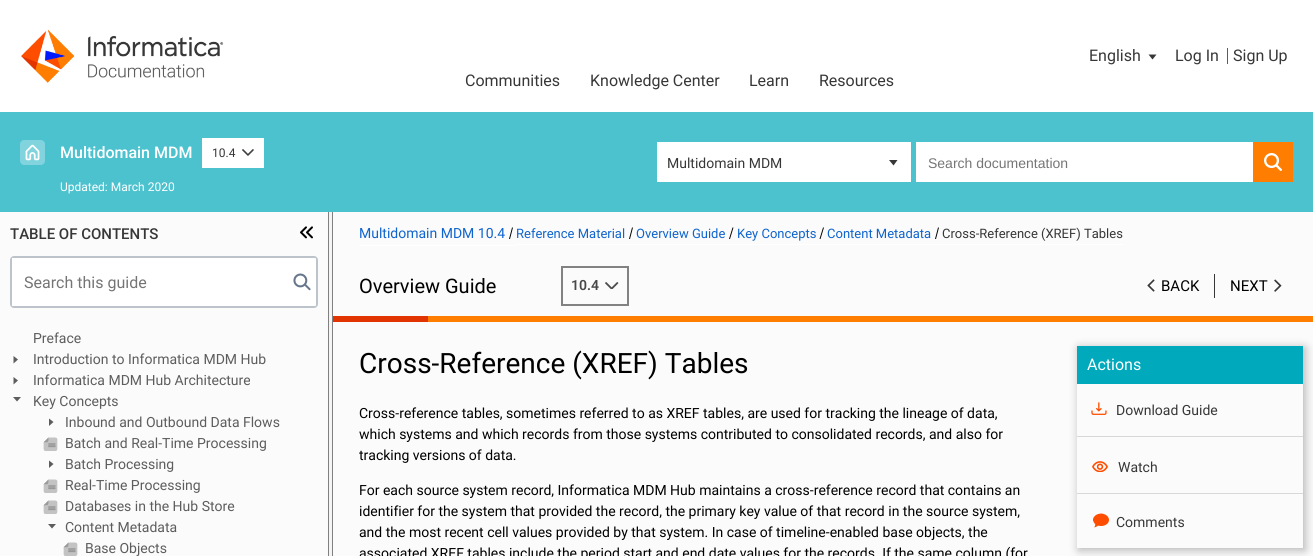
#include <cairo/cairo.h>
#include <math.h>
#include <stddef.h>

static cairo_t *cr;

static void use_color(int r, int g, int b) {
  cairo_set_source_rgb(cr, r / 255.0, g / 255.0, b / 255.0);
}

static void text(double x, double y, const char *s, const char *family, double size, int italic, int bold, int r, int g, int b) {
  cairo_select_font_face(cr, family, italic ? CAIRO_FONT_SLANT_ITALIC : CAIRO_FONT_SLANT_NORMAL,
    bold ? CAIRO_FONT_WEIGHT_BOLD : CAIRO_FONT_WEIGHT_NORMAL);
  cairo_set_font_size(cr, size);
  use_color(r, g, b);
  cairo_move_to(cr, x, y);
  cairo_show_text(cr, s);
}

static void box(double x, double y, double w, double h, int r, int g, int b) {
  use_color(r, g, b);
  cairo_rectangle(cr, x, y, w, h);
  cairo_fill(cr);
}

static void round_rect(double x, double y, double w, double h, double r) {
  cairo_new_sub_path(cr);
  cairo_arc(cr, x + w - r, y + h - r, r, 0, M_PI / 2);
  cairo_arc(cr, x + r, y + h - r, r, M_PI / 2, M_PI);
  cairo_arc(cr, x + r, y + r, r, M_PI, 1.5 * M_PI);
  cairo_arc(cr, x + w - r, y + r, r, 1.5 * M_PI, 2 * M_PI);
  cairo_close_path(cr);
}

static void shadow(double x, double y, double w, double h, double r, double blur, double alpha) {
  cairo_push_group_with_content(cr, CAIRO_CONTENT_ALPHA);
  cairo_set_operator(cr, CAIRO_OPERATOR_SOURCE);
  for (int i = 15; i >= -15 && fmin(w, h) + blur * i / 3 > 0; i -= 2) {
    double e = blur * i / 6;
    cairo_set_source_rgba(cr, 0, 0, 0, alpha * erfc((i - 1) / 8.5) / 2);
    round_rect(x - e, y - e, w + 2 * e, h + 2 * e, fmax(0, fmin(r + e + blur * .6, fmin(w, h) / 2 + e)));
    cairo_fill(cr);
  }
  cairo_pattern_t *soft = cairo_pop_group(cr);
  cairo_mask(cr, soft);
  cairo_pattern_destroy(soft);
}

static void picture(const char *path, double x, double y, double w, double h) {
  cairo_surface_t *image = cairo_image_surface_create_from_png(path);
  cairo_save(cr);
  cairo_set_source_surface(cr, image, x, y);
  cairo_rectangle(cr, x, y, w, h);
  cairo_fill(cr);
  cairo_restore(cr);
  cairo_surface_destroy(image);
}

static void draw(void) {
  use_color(255, 255, 255);
  cairo_paint(cr);
  picture("img_01.png", 21, 29, 203, 54);
  use_color(55, 55, 55);
  cairo_new_path(cr);
  cairo_move_to(cr, 1156.5, 54.5);
  cairo_line_to(cr, 1152.5, 59.5);
  cairo_line_to(cr, 1148.5, 54.5);
  cairo_close_path(cr);
  cairo_fill(cr);
  box(1227, 48, 1, 16, 93, 93, 93);
  box(0, 112, 1313, 100, 77, 194, 207);
  picture("img_02.png", 20, 140, 25, 25);
  box(202, 138, 62, 30, 255, 255, 255);
  picture("img_03.png", 242, 149, 12, 7);
  box(657, 142, 254, 40, 255, 255, 255);
  use_color(55, 55, 55);
  cairo_new_path(cr);
  cairo_move_to(cr, 897.5, 160);
  cairo_line_to(cr, 893.5, 165.5);
  cairo_line_to(cr, 889, 160);
  cairo_close_path(cr);
  cairo_fill(cr);
  box(916, 142, 337, 40, 255, 255, 255);
  box(1253, 142, 40, 40, 255, 125, 0);
  picture("img_04.png", 1264, 153, 18, 18);
  box(0, 212, 328, 344, 251, 251, 251);
  use_color(255, 255, 255);
  round_rect(10.5, 256.5, 307, 51, 3.5);
  cairo_fill_preserve(cr);
  use_color(188, 195, 202);
  cairo_set_line_width(cr, 1);
  cairo_stroke(cr);
  round_rect(11.5, 257.5, 305, 49, 1.5);
  cairo_stroke(cr);
  box(12, 258, 1, 48, 255, 255, 255);
  picture("img_05.png", 293, 273, 18, 18);
  picture("img_06.png", 300, 226, 13, 13);
  box(333, 212, 980, 344, 251, 251, 251);
  box(329, 316, 99, 6, 226, 52, 0);
  box(329, 212, 3, 344, 244, 244, 244);
  box(332, 212, 1, 344, 128, 128, 128);
  box(328, 212, 1, 344, 128, 128, 128);
  use_color(93, 93, 93);
  cairo_new_path(cr);
  cairo_move_to(cr, 13.5, 356);
  cairo_line_to(cr, 18, 359.5);
  cairo_line_to(cr, 13.5, 363.5);
  cairo_close_path(cr);
  cairo_fill(cr);
  cairo_new_path(cr);
  cairo_move_to(cr, 13.5, 377);
  cairo_line_to(cr, 18, 380.5);
  cairo_line_to(cr, 13.5, 384.5);
  cairo_close_path(cr);
  cairo_fill(cr);
  cairo_new_path(cr);
  cairo_move_to(cr, 21, 397);
  cairo_line_to(cr, 17, 401.5);
  cairo_line_to(cr, 13, 397);
  cairo_close_path(cr);
  cairo_move_to(cr, 49, 418.5);
  cairo_line_to(cr, 53.5, 422);
  cairo_line_to(cr, 49, 426);
  cairo_close_path(cr);
  cairo_fill(cr);
  picture("img_07.png", 43, 437, 15, 14);
  cairo_new_path(cr);
  cairo_move_to(cr, 49, 460.5);
  cairo_line_to(cr, 53.5, 464);
  cairo_line_to(cr, 49, 468);
  cairo_close_path(cr);
  cairo_fill(cr);
  picture("img_07.png", 43, 479, 15, 14);
  picture("img_07.png", 43, 500, 15, 14);
  cairo_new_path(cr);
  cairo_move_to(cr, 56, 524);
  cairo_line_to(cr, 52, 528.5);
  cairo_line_to(cr, 48, 524);
  cairo_close_path(cr);
  cairo_fill(cr);
  picture("img_07.png", 63, 542, 15, 14);
  box(359, 245, 157, 1, 255, 255, 255);
  use_color(0, 0, 0);
  cairo_new_path(cr);
  cairo_move_to(cr, 512, 227.5);
  cairo_line_to(cr, 513, 227.5);
  cairo_line_to(cr, 510, 239);
  cairo_line_to(cr, 509, 239);
  cairo_close_path(cr);
  cairo_fill(cr);
  box(516, 244, 607, 1, 255, 255, 255);
  use_color(0, 0, 0);
  cairo_new_path(cr);
  cairo_move_to(cr, 632, 227.5);
  cairo_line_to(cr, 633, 227.5);
  cairo_line_to(cr, 630, 239);
  cairo_line_to(cr, 629, 239);
  cairo_close_path(cr);
  cairo_fill(cr);
  cairo_new_path(cr);
  cairo_move_to(cr, 732.5, 227.5);
  cairo_line_to(cr, 733.5, 227.5);
  cairo_line_to(cr, 730, 239);
  cairo_line_to(cr, 729, 239);
  cairo_close_path(cr);
  cairo_fill(cr);
  cairo_new_path(cr);
  cairo_move_to(cr, 823, 227.5);
  cairo_line_to(cr, 824, 227.5);
  cairo_line_to(cr, 820.5, 239);
  cairo_line_to(cr, 819.5, 239);
  cairo_close_path(cr);
  cairo_fill(cr);
  cairo_new_path(cr);
  cairo_move_to(cr, 938, 227.5);
  cairo_line_to(cr, 939, 227.5);
  cairo_line_to(cr, 936, 239);
  cairo_line_to(cr, 935, 239);
  cairo_close_path(cr);
  cairo_fill(cr);
  cairo_rectangle(cr, 562, 267, 66, 38);
  use_color(130, 130, 130);
  cairo_set_line_width(cr, 2);
  cairo_stroke(cr);
  picture("img_08.png", 605, 282, 14, 7);
  picture("img_09.png", 1147, 279, 8, 13);
  box(1214, 274, 1, 24, 55, 55, 55);
  picture("img_10.png", 1274, 279, 8, 13);
  box(428, 316, 885, 6, 255, 125, 0);
  cairo_save(cr);
  cairo_set_fill_rule(cr, CAIRO_FILL_RULE_EVEN_ODD);
  cairo_new_path(cr);
  cairo_move_to(cr, 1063, 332);
  cairo_line_to(cr, 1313, 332);
  cairo_line_to(cr, 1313, 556);
  cairo_line_to(cr, 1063, 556);
  cairo_close_path(cr);
  cairo_move_to(cr, 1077, 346);
  cairo_line_to(cr, 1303, 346);
  cairo_line_to(cr, 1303, 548);
  cairo_line_to(cr, 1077, 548);
  cairo_close_path(cr);
  cairo_clip(cr);
  use_color(0, 0, 0);
  shadow(1079, 348, 226, 202, 0, 5, 0.3);
  cairo_restore(cr);
  box(1077, 346, 226, 38, 0, 169, 187);
  box(1077, 436, 226, 1, 216, 216, 216);
  picture("img_11.png", 1091, 402, 16, 13);
  box(1077, 493, 226, 1, 216, 216, 216);
  picture("img_12.png", 1092, 461, 16, 11);
  picture("img_13.png", 1093, 513, 16, 15);
  text(1089, 61, "English", "Roboto", 16, 0, 0, 55, 55, 55);
  text(1175, 61, "Log In", "Roboto", 16, 0, 0, 55, 55, 55);
  text(1233, 61, "Sign Up", "Roboto", 16, 0, 0, 55, 55, 55);
  text(465, 86, "Communities", "Roboto", 16, 0, 0, 55, 55, 55);
  text(590, 86, "Knowledge Center", "Roboto", 16, 0, 0, 55, 55, 55);
  text(749, 86, "Learn", "Roboto", 16, 0, 0, 55, 55, 55);
  text(819, 86, "Resources", "Roboto", 16, 0, 0, 55, 55, 55);
  text(60, 158, "Multidomain MDM", "Roboto Medium", 16, 0, 0, 255, 255, 255);
  text(212, 157, "10.4", "Roboto", 12, 0, 0, 55, 55, 55);
  text(60, 191, "Updated: March 2020", "Roboto", 12, 0, 0, 255, 255, 255);
  text(667, 168, "Multidomain MDM", "Roboto", 14, 0, 0, 55, 55, 55);
  text(928, 168, "Search documentation", "Liberation Sans", 14, 0, 0, 117, 117, 117);
  text(10, 239, "TABLE OF CONTENTS", "Roboto Medium", 15, 0, 0, 55, 55, 55);
  text(24, 288, "Search this guide", "Roboto", 16, 0, 0, 117, 117, 117);
  text(33, 343, "Preface", "Roboto", 14, 0, 0, 93, 93, 93);
  text(33, 364, "Introduction to Informatica MDM Hub", "Roboto", 14, 0, 0, 93, 93, 93);
  text(33, 385, "Informatica MDM Hub Architecture", "Roboto", 14, 0, 0, 93, 93, 93);
  text(33, 406, "Key Concepts", "Roboto", 14, 0, 0, 93, 93, 93);
  text(65, 427, "Inbound and Outbound Data Flows", "Roboto", 14, 0, 0, 93, 93, 93);
  text(65, 448, "Batch and Real-Time Processing", "Roboto", 14, 0, 0, 93, 93, 93);
  text(65, 469, "Batch Processing", "Roboto", 14, 0, 0, 93, 93, 93);
  text(65, 490, "Real-Time Processing", "Roboto", 14, 0, 0, 93, 93, 93);
  text(65, 511, "Databases in the Hub Store", "Roboto", 14, 0, 0, 93, 93, 93);
  text(65, 532, "Content Metadata", "Roboto", 14, 0, 0, 93, 93, 93);
  text(85, 553, "Base Objects", "Roboto", 14, 0, 0, 93, 93, 93);
  text(359, 238, "Multidomain MDM 10.4", "Roboto", 14, 0, 0, 15, 100, 205);
  text(516, 238, "Reference Material", "Roboto", 13, 0, 0, 15, 100, 205);
  text(636, 238, "Overview Guide", "Roboto", 13, 0, 0, 15, 100, 205);
  text(737, 238, "Key Concepts", "Roboto", 13, 0, 0, 15, 100, 205);
  text(827, 238, "Content Metadata", "Roboto", 13, 0, 0, 15, 100, 205);
  text(942, 238, "Cross-Reference (XREF) Tables", "Roboto", 13, 0, 0, 55, 55, 55);
  text(359, 293, "Overview Guide", "Roboto", 20, 0, 0, 0, 0, 0);
  text(571, 290, "10.4", "Roboto SemiBold", 14, 0, 0, 72, 72, 72);
  text(1161, 291, "BACK", "Roboto", 15, 0, 0, 0, 0, 0);
  text(1230, 291, "NEXT", "Roboto", 15, 0, 0, 0, 0, 0);
  text(359, 373, "Cross-Reference (XREF) Tables", "Roboto", 28, 0, 0, 0, 0, 0);
  text(359, 418, "Cross-reference tables, sometimes referred to as XREF tables, are used for tracking the lineage of data,", "Roboto", 14, 0, 0, 0, 0, 0);
  text(359, 439, "which systems and which records from those systems contributed to consolidated records, and also for", "Roboto", 14, 0, 0, 0, 0, 0);
  text(359, 460, "tracking versions of data.", "Roboto", 14, 0, 0, 0, 0, 0);
  text(359, 495, "For each source system record, Informatica MDM Hub maintains a cross-reference record that contains an", "Roboto", 14, 0, 0, 0, 0, 0);
  text(359, 516, "identifier for the system that provided the record, the primary key value of that record in the source system,", "Roboto", 14, 0, 0, 0, 0, 0);
  text(359, 537, "and the most recent cell values provided by that system. In case of timeline-enabled base objects, the", "Roboto", 14, 0, 0, 0, 0, 0);
  text(359, 558, "associated XREF tables include the period start and end date values for the records. If the same column (for", "Roboto", 14, 0, 0, 0, 0, 0);
  text(1087, 370, "Actions", "Roboto", 16, 0, 0, 255, 255, 255);
  text(1116, 415, "Download Guide", "Roboto", 14, 0, 0, 55, 55, 55);
  text(1118, 472, "Watch", "Roboto", 14, 0, 0, 55, 55, 55);
  text(1116, 527, "Comments", "Roboto", 14, 0, 0, 55, 55, 55);
}

int main(void) {
  cairo_surface_t *surface = cairo_image_surface_create(CAIRO_FORMAT_RGB24, 1313, 556);
  cr = cairo_create(surface);
  cairo_font_options_t *options = cairo_font_options_create();
  cairo_font_options_set_hint_metrics(options, CAIRO_HINT_METRICS_OFF);
  cairo_font_options_set_hint_style(options, CAIRO_HINT_STYLE_NONE);
  cairo_set_font_options(cr, options);
  cairo_set_miter_limit(cr, 4);
  draw();
  cairo_surface_write_to_png(surface, "out.png");
  cairo_font_options_destroy(options);
  cairo_destroy(cr);
  cairo_surface_destroy(surface);
  return 0;
}
